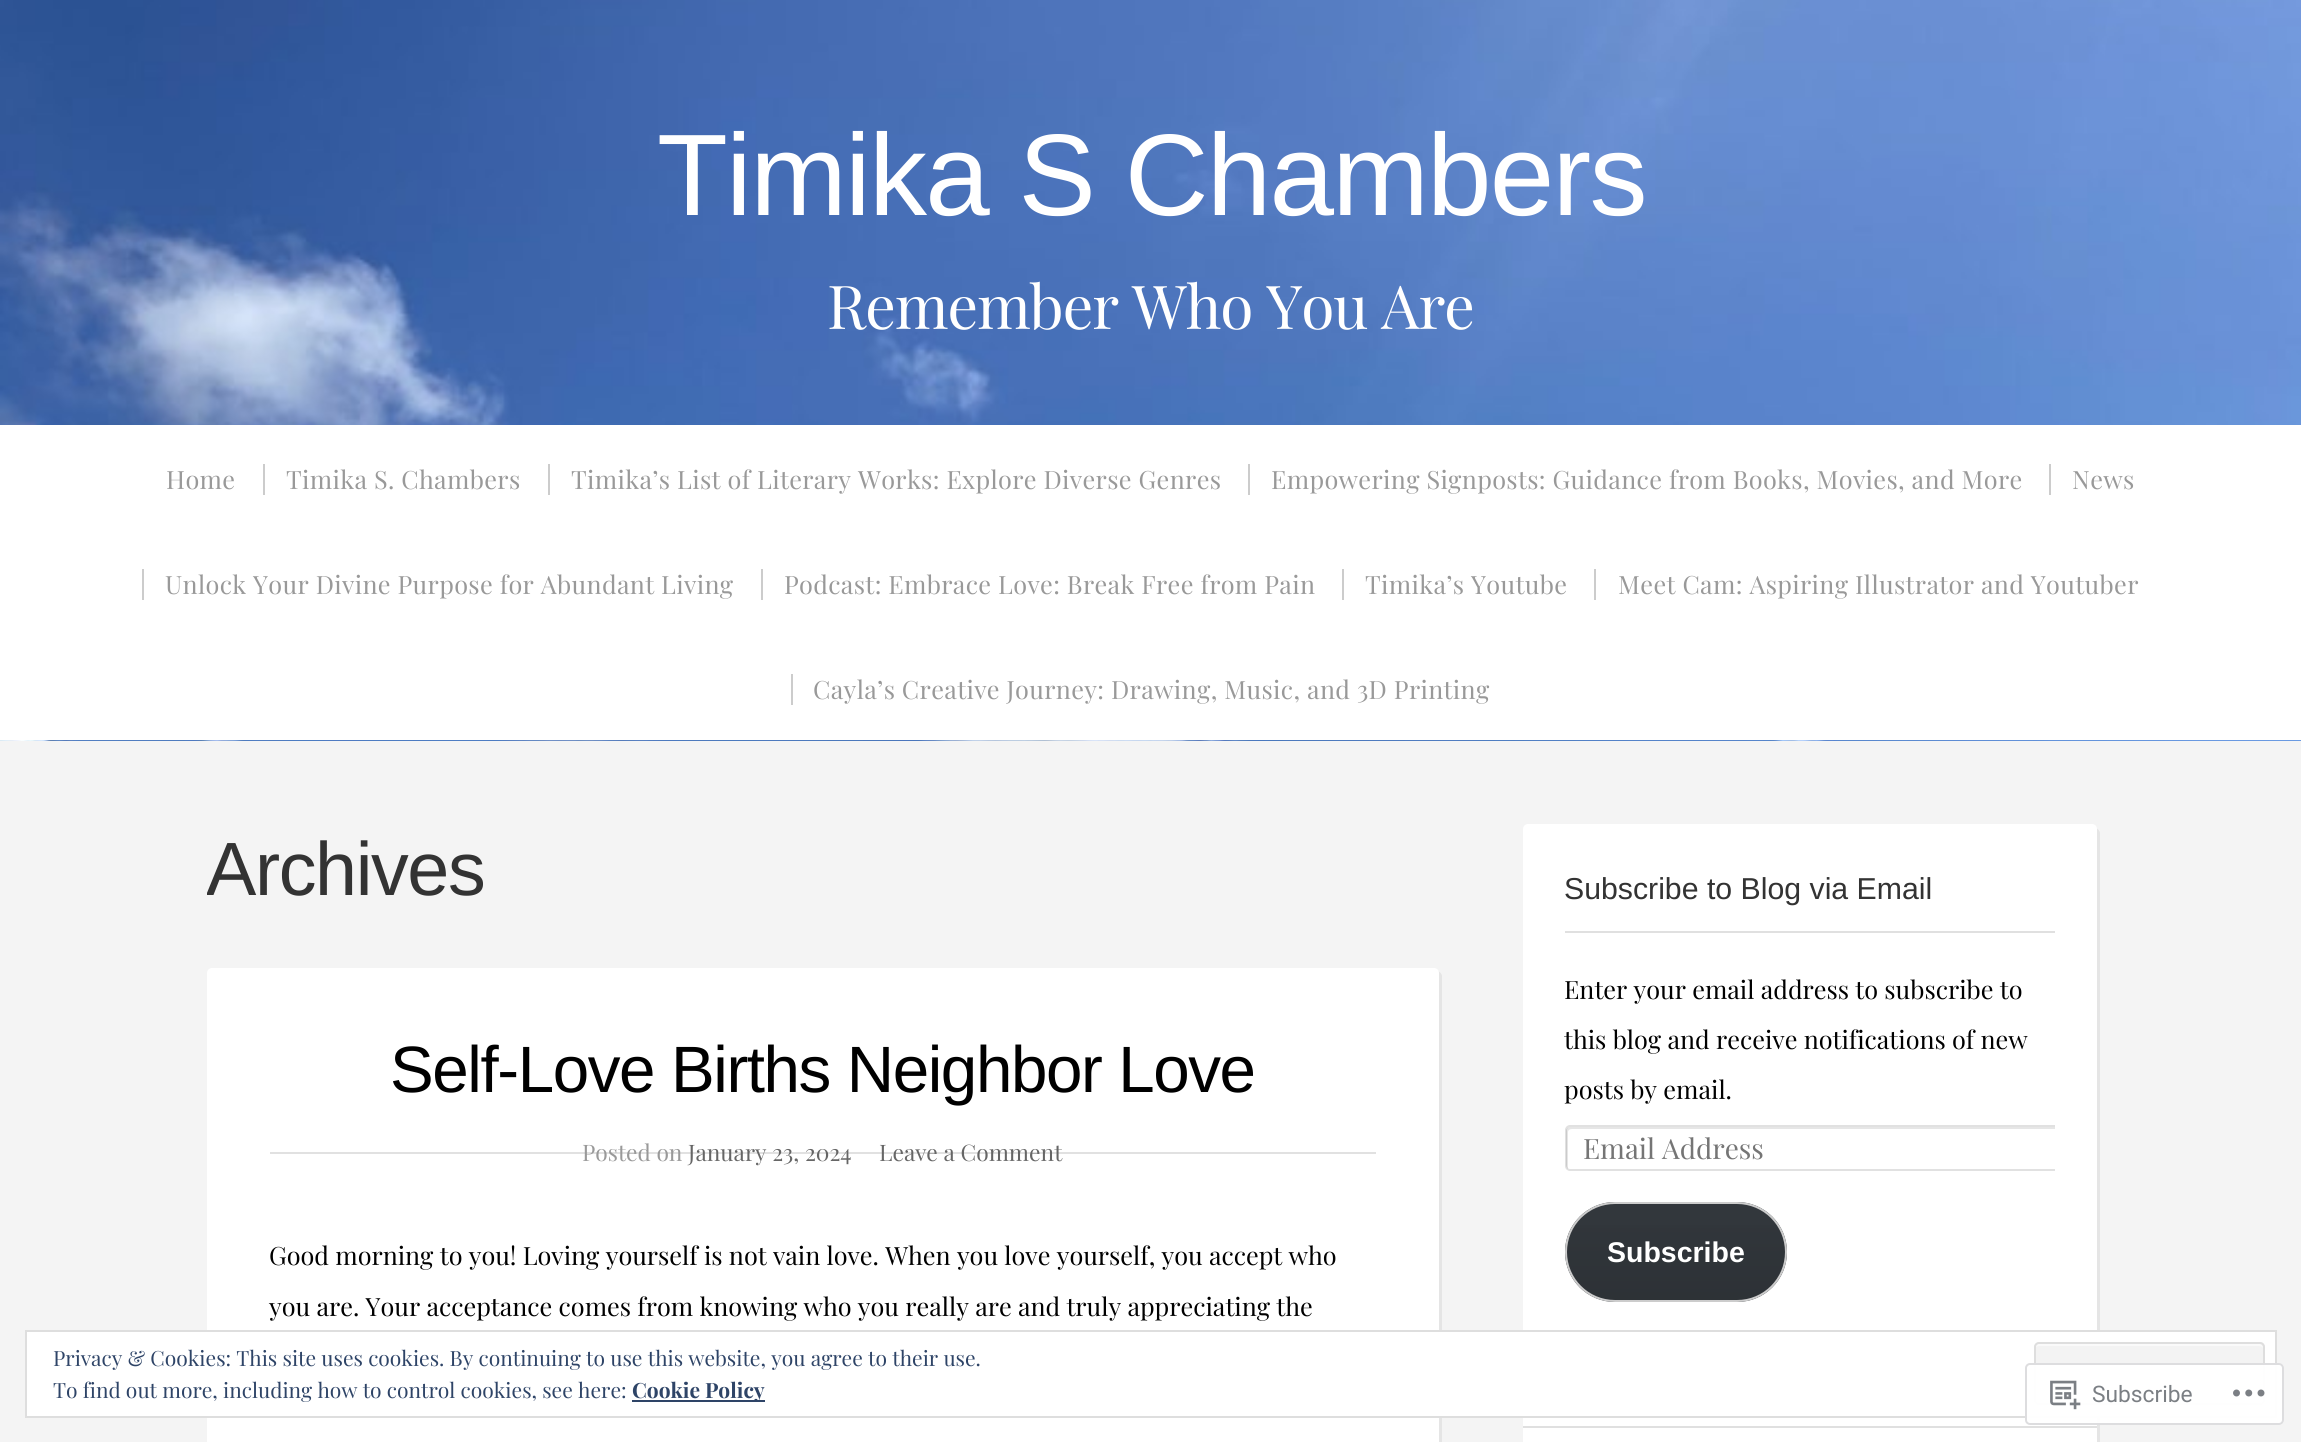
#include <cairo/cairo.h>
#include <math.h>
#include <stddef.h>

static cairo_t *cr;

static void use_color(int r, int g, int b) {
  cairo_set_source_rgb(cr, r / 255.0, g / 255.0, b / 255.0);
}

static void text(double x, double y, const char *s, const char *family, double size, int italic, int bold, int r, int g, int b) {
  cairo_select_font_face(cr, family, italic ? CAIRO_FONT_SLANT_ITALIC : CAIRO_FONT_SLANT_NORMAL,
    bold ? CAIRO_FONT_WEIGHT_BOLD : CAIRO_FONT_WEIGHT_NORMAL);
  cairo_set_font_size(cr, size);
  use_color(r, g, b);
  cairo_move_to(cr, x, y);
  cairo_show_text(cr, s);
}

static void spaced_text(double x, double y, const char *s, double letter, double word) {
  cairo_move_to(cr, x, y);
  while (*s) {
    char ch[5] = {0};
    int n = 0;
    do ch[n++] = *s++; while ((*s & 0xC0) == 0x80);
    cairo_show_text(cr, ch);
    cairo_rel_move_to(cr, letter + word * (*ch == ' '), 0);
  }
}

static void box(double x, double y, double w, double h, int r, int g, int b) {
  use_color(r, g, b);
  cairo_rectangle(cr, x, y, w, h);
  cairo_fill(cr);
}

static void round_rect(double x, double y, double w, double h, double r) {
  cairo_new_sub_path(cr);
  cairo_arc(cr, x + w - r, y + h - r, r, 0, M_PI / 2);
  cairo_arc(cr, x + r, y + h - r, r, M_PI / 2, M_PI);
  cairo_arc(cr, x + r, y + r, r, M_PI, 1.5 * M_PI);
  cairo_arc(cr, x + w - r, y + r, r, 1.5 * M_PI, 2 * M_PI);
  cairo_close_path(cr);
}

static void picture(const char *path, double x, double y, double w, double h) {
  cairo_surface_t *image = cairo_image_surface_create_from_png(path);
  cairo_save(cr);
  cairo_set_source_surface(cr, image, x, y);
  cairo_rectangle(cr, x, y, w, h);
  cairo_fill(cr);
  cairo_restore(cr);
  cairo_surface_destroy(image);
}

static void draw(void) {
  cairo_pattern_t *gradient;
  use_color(244, 244, 244);
  cairo_paint(cr);
  picture("img_01.png", 0, 0, 2301, 741);
  box(0, 425, 2301, 315, 255, 255, 255);
  box(263, 464, 2, 31, 204, 204, 204);
  box(548, 464, 2, 31, 204, 204, 204);
  box(1248, 464, 2, 31, 204, 204, 204);
  box(2049, 464, 2, 31, 204, 204, 204);
  box(142, 569, 2, 31, 204, 204, 204);
  box(761, 569, 2, 31, 204, 204, 204);
  box(1342, 569, 2, 31, 204, 204, 204);
  box(1594, 569, 2, 31, 204, 204, 204);
  box(791, 674, 2, 31, 204, 204, 204);
  use_color(229, 229, 229);
  cairo_new_path(cr);
  cairo_move_to(cr, 210, 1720);
  cairo_curve_to(cr, 211, 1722, 213, 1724, 215, 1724);
  cairo_line_to(cr, 1437, 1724);
  cairo_curve_to(cr, 1440, 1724, 1442, 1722, 1442, 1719);
  cairo_line_to(cr, 1442, 976);
  cairo_curve_to(cr, 1442, 974, 1440, 972, 1438, 971);
  cairo_line_to(cr, 1438, 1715);
  cairo_curve_to(cr, 1438, 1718, 1436, 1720, 1433, 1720);
  cairo_close_path(cr);
  cairo_fill(cr);
  use_color(255, 255, 255);
  round_rect(207, 968, 1232, 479, 5);
  cairo_fill(cr);
  cairo_set_source_rgba(cr, 0, 0, 0, 0.12);
  cairo_rectangle(cr, 270, 1152, 1106, 2);
  cairo_fill(cr);
  use_color(229, 229, 229);
  cairo_new_path(cr);
  cairo_move_to(cr, 1526, 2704);
  cairo_curve_to(cr, 1527, 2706, 1529, 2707, 1531, 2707);
  cairo_line_to(cr, 2095, 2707);
  cairo_curve_to(cr, 2098, 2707, 2100, 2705, 2100, 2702);
  cairo_line_to(cr, 2100, 833);
  cairo_curve_to(cr, 2100, 831, 2098, 829, 2096, 828);
  cairo_line_to(cr, 2096, 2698);
  cairo_curve_to(cr, 2096, 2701, 2094, 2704, 2091, 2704);
  cairo_close_path(cr);
  cairo_fill(cr);
  use_color(255, 255, 255);
  round_rect(1523, 824, 574, 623, 5);
  cairo_fill(cr);
  box(1523, 1426, 574, 2, 224, 224, 224);
  box(1565, 931, 490, 2, 224, 224, 224);
  cairo_save(cr);
  cairo_rectangle(cr, 1565, 954, 490, 380);
  cairo_clip(cr);
  use_color(230, 230, 230);
  cairo_new_path(cr);
  cairo_move_to(cr, 1572, 1129);
  cairo_line_to(cr, 2067, 1129);
  cairo_curve_to(cr, 2066, 1128, 2065, 1127, 2063, 1127);
  cairo_line_to(cr, 1570, 1127);
  cairo_curve_to(cr, 1568, 1127, 1566, 1129, 1566, 1131);
  cairo_line_to(cr, 1566, 1165);
  cairo_curve_to(cr, 1566, 1167, 1567, 1168, 1568, 1169);
  cairo_line_to(cr, 1568, 1167);
  cairo_line_to(cr, 1568, 1132);
  cairo_curve_to(cr, 1568, 1130, 1570, 1129, 1572, 1129);
  cairo_close_path(cr);
  cairo_fill(cr);
  round_rect(1566, 1126, 502, 44, 4);
  cairo_set_source_rgba(cr, 0, 0, 0, 0.12);
  cairo_stroke(cr);
  cairo_restore(cr);
  use_color(50, 55, 60);
  round_rect(1565, 1202, 222, 100, 50);
  cairo_fill(cr);
  cairo_save(cr);
  round_rect(1565, 1202, 222, 100, 50);
  cairo_clip(cr);
  gradient = cairo_pattern_create_linear(1676, 1204, 1676, 1300);
  cairo_pattern_add_color_stop_rgba(gradient, 0, 0, 0, 0, 0);
  cairo_pattern_add_color_stop_rgba(gradient, 1, 0, 0, 0, 0.1);
  cairo_set_source(cr, gradient);
  cairo_pattern_destroy(gradient);
  cairo_rectangle(cr, 1565, 1225, 222, 75);
  cairo_fill(cr);
  cairo_restore(cr);
  round_rect(1566, 1203, 220, 98, 49);
  use_color(204, 204, 204);
  cairo_stroke(cr);
  use_color(255, 255, 255);
  cairo_rectangle(cr, 26, 1331, 2250, 86);
  cairo_fill_preserve(cr);
  use_color(222, 222, 222);
  cairo_stroke(cr);
  use_color(243, 243, 243);
  round_rect(2034, 1342, 231, 63, 5);
  cairo_fill(cr);
  use_color(250, 250, 250);
  cairo_new_path(cr);
  cairo_move_to(cr, 2039, 1346);
  cairo_line_to(cr, 2259, 1346);
  cairo_curve_to(cr, 2261, 1346, 2263, 1347, 2263, 1349);
  cairo_curve_to(cr, 2263, 1346, 2262, 1344, 2259, 1344);
  cairo_line_to(cr, 2039, 1344);
  cairo_curve_to(cr, 2036, 1344, 2035, 1346, 2035, 1349);
  cairo_curve_to(cr, 2035, 1347, 2037, 1346, 2039, 1346);
  cairo_close_path(cr);
  cairo_fill(cr);
  round_rect(2035, 1343, 229, 61, 4);
  use_color(222, 222, 222);
  cairo_stroke(cr);
  box(632, 1400, 133, 2, 46, 68, 103);
  cairo_set_source_rgba(cr, 1, 1, 1, 0.98);
  round_rect(2025, 1363, 259, 62, 5);
  cairo_fill(cr);
  round_rect(2026, 1364, 257, 60, 4);
  cairo_set_source_rgba(cr, 0.863, 0.863, 0.871, 0.98);
  cairo_stroke(cr);
  picture("img_02.png", 2050, 1380, 31, 30);
  picture("img_03.png", 2233, 1389, 32, 8);
  cairo_select_font_face(cr, "Arimo", CAIRO_FONT_SLANT_NORMAL, CAIRO_FONT_WEIGHT_NORMAL);
  cairo_set_font_size(cr, 116);
  use_color(255, 255, 255);
  spaced_text(657, 215, "Timika S Chambers", -1.75, 0);
  cairo_select_font_face(cr, "Playfair Display", CAIRO_FONT_SLANT_NORMAL, CAIRO_FONT_WEIGHT_NORMAL);
  cairo_set_font_size(cr, 60.5);
  spaced_text(827, 329, "Remember Who You Are", -1.05, 0);
  cairo_set_font_size(cr, 25.2);
  use_color(153, 153, 153);
  spaced_text(166, 489, "Home", 0.35, 0);
  spaced_text(286, 489, "Timika S. Chambers", 0.35, 0);
  spaced_text(571, 489, "Timika’s List of Literary Works: Explore Diverse Genres", 0.35, 0);
  spaced_text(1271, 489, "Empowering Signposts: Guidance from Books, Movies, and More", 0.35, 0);
  spaced_text(2072, 489, "News", 0.35, 0);
  spaced_text(165, 594, "Unlock Your Divine Purpose for Abundant Living", 0.35, 0);
  spaced_text(784, 594, "Podcast: Embrace Love: Break Free from Pain", 0.35, 0);
  spaced_text(1365, 594, "Timika’s Youtube", 0.35, 0);
  spaced_text(1618, 594, "Meet Cam: Aspiring Illustrator and Youtuber", 0.35, 0);
  spaced_text(813, 699, "Cayla’s Creative Journey: Drawing, Music, and 3D Printing", 0.35, 0);
  cairo_save(cr);
  cairo_rectangle(cr, 207, 740, 1232, 186);
  cairo_clip(cr);
  cairo_select_font_face(cr, "Arimo", CAIRO_FONT_SLANT_NORMAL, CAIRO_FONT_WEIGHT_NORMAL);
  cairo_set_font_size(cr, 75.5);
  use_color(51, 51, 51);
  spaced_text(206, 895, "Archives", -1.4, 0);
  cairo_restore(cr);
  cairo_select_font_face(cr, "Arimo", CAIRO_FONT_SLANT_NORMAL, CAIRO_FONT_WEIGHT_NORMAL);
  cairo_set_font_size(cr, 65.5);
  use_color(0, 0, 0);
  spaced_text(390, 1092, "Self-Love Births Neighbor Love", -1.4, 0);
  text(582, 1161, "Posted on", "Playfair Display", 22.75, 0, 0, 153, 153, 153);
  text(688, 1161, "January 23, 2024", "Playfair Display", 22.75, 0, 0, 102, 102, 102);
  text(879, 1161, "Leave a Comment", "Playfair Display", 22.75, 0, 0, 102, 102, 102);
  text(269, 1265, "Good morning to you! Loving yourself is not vain love. When you love yourself, you accept who", "Playfair Display", 25.2, 0, 0, 0, 0, 0);
  text(269, 1316, "you are. Your acceptance comes from knowing who you really are and truly appreciating the", "Playfair Display", 25.2, 0, 0, 0, 0, 0);
  text(1564, 899, "Subscribe to Blog via Email", "Arimo", 30.25, 0, 0, 51, 51, 51);
  text(1564, 999, "Enter your email address to subscribe to", "Playfair Display", 25.2, 0, 0, 0, 0, 0);
  text(1564, 1049, "this blog and receive notifications of new", "Playfair Display", 25.2, 0, 0, 0, 0, 0);
  text(1564, 1099, "posts by email.", "Playfair Display", 25.2, 0, 0, 0, 0, 0);
  text(1583, 1159, "Email Address", "Playfair Display", 28, 0, 0, 117, 117, 117);
  text(1607, 1262, "Subscribe", "Liberation Sans", 28.5, 0, 1, 255, 255, 255);
  text(53, 1366, "Privacy & Cookies: This site uses cookies. By continuing to use this website, you agree to their use.", "Playfair Display", 21, 0, 0, 46, 68, 103);
  text(53, 1398, "To find out more, including how to control cookies, see here:", "Playfair Display", 21, 0, 0, 46, 68, 103);
  text(632, 1398, "Cookie Policy", "Playfair Display", 21, 0, 1, 46, 68, 103);
  text(2092, 1402, "Subscribe", "Roboto", 22.75, 0, 0, 123, 127, 132);
}

int main(void) {
  cairo_surface_t *surface = cairo_image_surface_create(CAIRO_FORMAT_RGB24, 2301, 1442);
  cr = cairo_create(surface);
  cairo_font_options_t *options = cairo_font_options_create();
  cairo_font_options_set_hint_metrics(options, CAIRO_HINT_METRICS_OFF);
  cairo_font_options_set_hint_style(options, CAIRO_HINT_STYLE_NONE);
  cairo_set_font_options(cr, options);
  cairo_set_miter_limit(cr, 4);
  draw();
  cairo_surface_write_to_png(surface, "out.png");
  cairo_font_options_destroy(options);
  cairo_destroy(cr);
  cairo_surface_destroy(surface);
  return 0;
}
